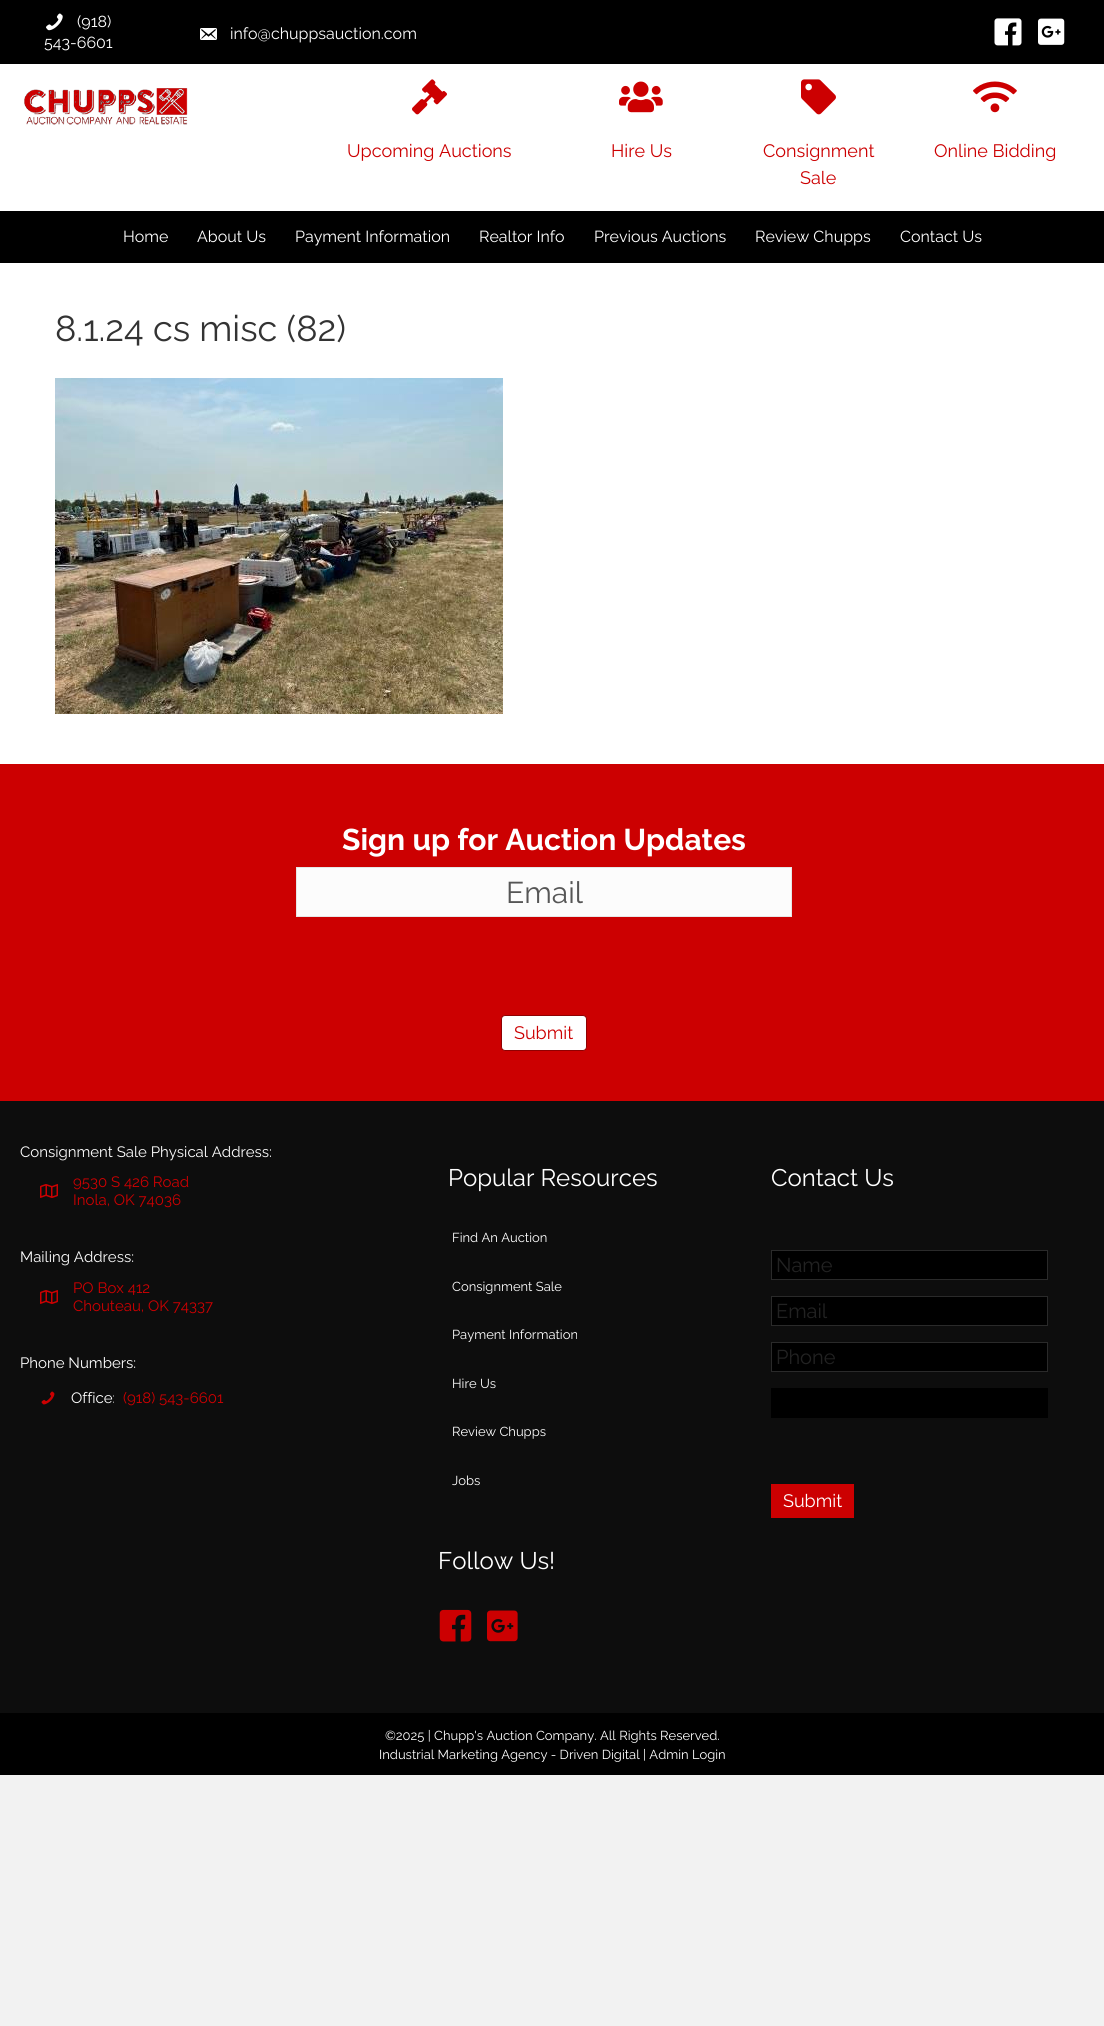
#include <cairo/cairo.h>
#include <math.h>
#include <stddef.h>

static cairo_t *cr;

static void use_color(int r, int g, int b) {
  cairo_set_source_rgb(cr, r / 255.0, g / 255.0, b / 255.0);
}

static void text(double x, double y, const char *s, const char *family, double size, int italic, int bold, int r, int g, int b) {
  cairo_select_font_face(cr, family, italic ? CAIRO_FONT_SLANT_ITALIC : CAIRO_FONT_SLANT_NORMAL,
    bold ? CAIRO_FONT_WEIGHT_BOLD : CAIRO_FONT_WEIGHT_NORMAL);
  cairo_set_font_size(cr, size);
  use_color(r, g, b);
  cairo_move_to(cr, x, y);
  cairo_show_text(cr, s);
}

static void box(double x, double y, double w, double h, int r, int g, int b) {
  use_color(r, g, b);
  cairo_rectangle(cr, x, y, w, h);
  cairo_fill(cr);
}

static void round_rect(double x, double y, double w, double h, double r) {
  cairo_new_sub_path(cr);
  cairo_arc(cr, x + w - r, y + h - r, r, 0, M_PI / 2);
  cairo_arc(cr, x + r, y + h - r, r, M_PI / 2, M_PI);
  cairo_arc(cr, x + r, y + r, r, M_PI, 1.5 * M_PI);
  cairo_arc(cr, x + w - r, y + r, r, 1.5 * M_PI, 2 * M_PI);
  cairo_close_path(cr);
}

static void picture(const char *path, double x, double y, double w, double h) {
  cairo_surface_t *image = cairo_image_surface_create_from_png(path);
  cairo_save(cr);
  cairo_set_source_surface(cr, image, x, y);
  cairo_rectangle(cr, x, y, w, h);
  cairo_fill(cr);
  cairo_restore(cr);
  cairo_surface_destroy(image);
}

static void draw(void) {
  use_color(242, 242, 242);
  cairo_paint(cr);
  box(0, 0, 1104, 64, 0, 0, 0);
  picture("img_01.png", 46, 13, 17, 18);
  picture("img_02.png", 200, 28, 17, 12);
  picture("img_03.png", 994, 18, 28, 28);
  picture("img_04.png", 1038, 18, 27, 27);
  box(0, 64, 1104, 147, 255, 255, 255);
  picture("img_05.png", 24, 88, 164, 37);
  picture("img_06.png", 412, 79, 35, 36);
  picture("img_07.png", 619, 81, 44, 32);
  picture("img_08.png", 801, 79, 35, 36);
  picture("img_09.png", 973, 81, 44, 32);
  box(0, 211, 1104, 52, 0, 0, 0);
  box(0, 263, 1104, 501, 255, 255, 255);
  picture("img_10.png", 55, 378, 448, 336);
  box(0, 764, 1104, 337, 204, 0, 1);
  use_color(252, 252, 252);
  cairo_rectangle(cr, 296.5, 867.5, 495, 49);
  cairo_fill_preserve(cr);
  use_color(230, 230, 230);
  cairo_set_line_width(cr, 1);
  cairo_stroke(cr);
  use_color(255, 255, 255);
  round_rect(501.5, 1015.5, 85, 35, 3.5);
  cairo_fill_preserve(cr);
  use_color(143, 0, 1);
  cairo_stroke(cr);
  box(0, 1101, 1104, 612, 13, 13, 13);
  picture("img_11.png", 40, 1184, 18, 14);
  picture("img_11.png", 40, 1290, 18, 14);
  picture("img_12.png", 41, 1391, 14, 14);
  picture("img_13.png", 439, 1609, 33, 33);
  picture("img_14.png", 487, 1610, 31, 32);
  use_color(0, 0, 0);
  cairo_rectangle(cr, 771.5, 1250.5, 276, 29);
  cairo_fill_preserve(cr);
  use_color(42, 42, 42);
  cairo_stroke(cr);
  use_color(0, 0, 0);
  cairo_rectangle(cr, 771.5, 1296.5, 276, 29);
  cairo_fill_preserve(cr);
  use_color(42, 42, 42);
  cairo_stroke(cr);
  use_color(0, 0, 0);
  cairo_rectangle(cr, 771.5, 1342.5, 276, 29);
  cairo_fill_preserve(cr);
  use_color(42, 42, 42);
  cairo_stroke(cr);
  box(771, 1388, 277, 30, 0, 0, 0);
  box(771, 1484, 83, 34, 204, 0, 1);
  box(0, 1713, 1104, 62, 0, 0, 0);
  text(77, 27, "(918)", "Raleway", 16, 0, 0, 255, 255, 255);
  text(44, 48, "543-6601", "Raleway", 16, 0, 0, 255, 255, 255);
  text(230, 39, "info@chuppsauction.com", "Raleway", 16, 0, 0, 255, 255, 255);
  text(347, 157, "Upcoming Auctions", "Raleway", 18, 0, 0, 204, 0, 1);
  text(611, 157, "Hire Us", "Raleway", 18, 0, 0, 204, 0, 1);
  text(763, 157, "Consignment", "Raleway", 18, 0, 0, 204, 0, 1);
  text(800, 184, "Sale", "Raleway", 18, 0, 0, 204, 0, 1);
  text(934, 157, "Online Bidding", "Raleway", 18, 0, 0, 204, 0, 1);
  text(123, 242, "Home", "Raleway", 16, 0, 0, 255, 255, 255);
  text(197, 242, "About Us", "Raleway", 16, 0, 0, 255, 255, 255);
  text(295, 242, "Payment Information", "Raleway", 16, 0, 0, 255, 255, 255);
  text(479, 242, "Realtor Info", "Raleway", 16, 0, 0, 255, 255, 255);
  text(594, 242, "Previous Auctions", "Raleway", 16, 0, 0, 255, 255, 255);
  text(755, 242, "Review Chupps", "Raleway", 16, 0, 0, 255, 255, 255);
  text(900, 242, "Contact Us", "Raleway", 16, 0, 0, 255, 255, 255);
  text(55, 341, "8.1.24 cs misc (82)", "Raleway", 36, 0, 0, 51, 51, 51);
  text(342, 850, "Sign up for Auction Updates", "Raleway", 30, 0, 1, 255, 255, 255);
  text(506, 903, "Email", "Raleway", 30, 0, 0, 86, 86, 86);
  text(514, 1039, "Submit", "Raleway", 18, 0, 0, 204, 0, 1);
  text(20, 1157, "Consignment Sale Physical Address:", "Raleway", 15, 0, 0, 255, 255, 255);
  text(73, 1187, "9530 S 426 Road", "Raleway", 15, 0, 0, 204, 0, 1);
  text(73, 1205, "Inola, OK 74036", "Raleway", 15, 0, 0, 204, 0, 1);
  text(20, 1262, "Mailing Address:", "Raleway", 15, 0, 0, 255, 255, 255);
  text(73, 1293, "PO Box 412", "Raleway", 15, 0, 0, 204, 0, 1);
  text(73, 1311, "Chouteau, OK 74337", "Raleway", 15, 0, 0, 204, 0, 1);
  text(20, 1368, "Phone Numbers:", "Raleway", 15, 0, 0, 255, 255, 255);
  text(71, 1403, "Office:", "Raleway", 15, 0, 0, 255, 255, 255);
  text(123, 1403, "(918) 543-6601", "Raleway", 15, 0, 0, 204, 0, 1);
  text(448, 1186, "Popular Resources", "Raleway", 24, 0, 0, 255, 255, 255);
  text(452, 1242, "Find An Auction", "Raleway", 13, 0, 0, 255, 255, 255);
  text(452, 1291, "Consignment Sale", "Raleway", 13, 0, 0, 255, 255, 255);
  text(452, 1339, "Payment Information", "Raleway", 13, 0, 0, 255, 255, 255);
  text(452, 1388, "Hire Us", "Raleway", 13, 0, 0, 255, 255, 255);
  text(452, 1436, "Review Chupps", "Raleway", 13, 0, 0, 255, 255, 255);
  text(452, 1485, "Jobs", "Raleway", 13, 0, 0, 255, 255, 255);
  text(438, 1569, "Follow Us!", "Raleway", 24, 0, 0, 255, 255, 255);
  text(771, 1186, "Contact Us", "Raleway", 24, 0, 0, 255, 255, 255);
  text(776, 1272, "Name", "Raleway", 20, 0, 0, 34, 34, 34);
  text(776, 1318, "Email", "Raleway", 20, 0, 0, 34, 34, 34);
  text(776, 1364, "Phone", "Raleway", 20, 0, 0, 34, 34, 34);
  text(783, 1507, "Submit", "Raleway", 18, 0, 0, 255, 255, 255);
  text(385, 1740, "©2025 | Chupp's Auction Company. All Rights Reserved.", "Raleway", 13, 0, 0, 255, 255, 255);
  text(379, 1759, "Industrial Marketing Agency - Driven Digital | Admin Login", "Raleway", 13, 0, 0, 255, 255, 255);
}

int main(void) {
  cairo_surface_t *surface = cairo_image_surface_create(CAIRO_FORMAT_RGB24, 1104, 2026);
  cr = cairo_create(surface);
  cairo_font_options_t *options = cairo_font_options_create();
  cairo_font_options_set_hint_metrics(options, CAIRO_HINT_METRICS_OFF);
  cairo_font_options_set_hint_style(options, CAIRO_HINT_STYLE_NONE);
  cairo_set_font_options(cr, options);
  cairo_set_miter_limit(cr, 4);
  draw();
  cairo_surface_write_to_png(surface, "out.png");
  cairo_font_options_destroy(options);
  cairo_destroy(cr);
  cairo_surface_destroy(surface);
  return 0;
}
